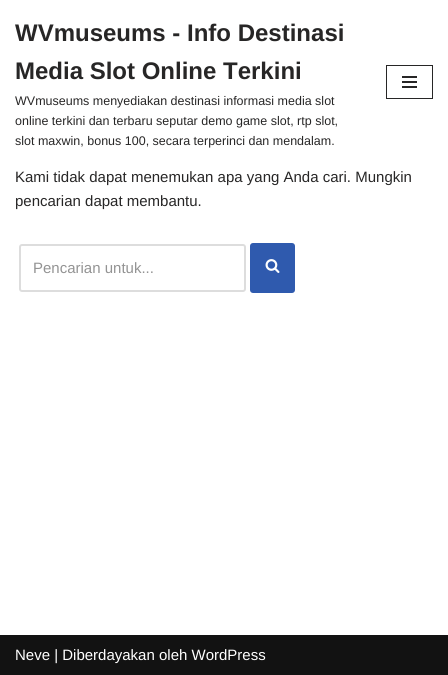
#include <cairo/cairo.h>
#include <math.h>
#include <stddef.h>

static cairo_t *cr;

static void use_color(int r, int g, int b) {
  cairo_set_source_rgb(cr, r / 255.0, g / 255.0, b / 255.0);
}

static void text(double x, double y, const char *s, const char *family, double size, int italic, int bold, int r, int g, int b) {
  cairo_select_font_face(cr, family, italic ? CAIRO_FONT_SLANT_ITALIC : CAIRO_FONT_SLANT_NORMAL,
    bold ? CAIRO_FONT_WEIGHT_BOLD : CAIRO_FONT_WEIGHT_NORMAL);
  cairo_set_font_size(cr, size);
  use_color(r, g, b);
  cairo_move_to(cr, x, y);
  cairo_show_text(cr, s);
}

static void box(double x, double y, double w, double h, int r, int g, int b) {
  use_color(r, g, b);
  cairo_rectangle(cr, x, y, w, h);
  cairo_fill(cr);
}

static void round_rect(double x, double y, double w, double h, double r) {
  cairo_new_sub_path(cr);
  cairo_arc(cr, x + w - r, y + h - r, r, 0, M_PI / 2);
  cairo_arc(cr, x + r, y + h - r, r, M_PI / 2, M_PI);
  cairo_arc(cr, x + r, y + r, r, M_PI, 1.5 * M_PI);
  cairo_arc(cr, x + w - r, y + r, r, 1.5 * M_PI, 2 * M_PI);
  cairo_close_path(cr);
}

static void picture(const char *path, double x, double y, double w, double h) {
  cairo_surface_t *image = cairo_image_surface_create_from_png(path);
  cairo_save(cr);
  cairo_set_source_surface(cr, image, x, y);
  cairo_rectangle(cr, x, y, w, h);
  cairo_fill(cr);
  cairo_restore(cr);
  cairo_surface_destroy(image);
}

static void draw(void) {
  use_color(255, 255, 255);
  cairo_paint(cr);
  cairo_rectangle(cr, 386.5, 65.5, 46, 33);
  use_color(39, 38, 38);
  cairo_set_line_width(cr, 1);
  cairo_stroke(cr);
  box(402, 76, 15, 2, 39, 38, 38);
  box(402, 81, 15, 2, 39, 38, 38);
  box(402, 86, 15, 2, 39, 38, 38);
  round_rect(20, 245, 225, 46, 2);
  use_color(221, 221, 221);
  cairo_set_line_width(cr, 2);
  cairo_stroke(cr);
  use_color(47, 90, 174);
  round_rect(250, 243, 45, 50, 3);
  cairo_fill(cr);
  picture("img_01.png", 265, 259, 15, 14);
  box(0, 635, 448, 40, 18, 18, 18);
  text(15, 41, "WVmuseums - Info Destinasi", "Liberation Sans", 24, 0, 1, 39, 38, 38);
  text(15, 79, "Media Slot Online Terkini", "Liberation Sans", 24, 0, 1, 39, 38, 38);
  text(15, 105, "WVmuseums menyediakan destinasi informasi media slot", "Liberation Sans", 12.5, 0, 0, 39, 38, 38);
  text(15, 125, "online terkini dan terbaru seputar demo game slot, rtp slot,", "Liberation Sans", 12.5, 0, 0, 39, 38, 38);
  text(15, 145, "slot maxwin, bonus 100, secara terperinci dan mendalam.", "Liberation Sans", 12.5, 0, 0, 39, 38, 38);
  text(15, 182, "Kami tidak dapat menemukan apa yang Anda cari. Mungkin", "Liberation Sans", 15, 0, 0, 39, 38, 38);
  text(15, 206, "pencarian dapat membantu.", "Liberation Sans", 15, 0, 0, 39, 38, 38);
  text(33, 273, "Pencarian untuk...", "Liberation Sans", 15, 0, 0, 147, 147, 147);
  text(15, 660, "Neve | Diberdayakan oleh WordPress", "Liberation Sans", 15, 0, 0, 255, 255, 255);
}

int main(void) {
  cairo_surface_t *surface = cairo_image_surface_create(CAIRO_FORMAT_RGB24, 448, 675);
  cr = cairo_create(surface);
  cairo_font_options_t *options = cairo_font_options_create();
  cairo_font_options_set_hint_metrics(options, CAIRO_HINT_METRICS_OFF);
  cairo_font_options_set_hint_style(options, CAIRO_HINT_STYLE_NONE);
  cairo_set_font_options(cr, options);
  cairo_set_miter_limit(cr, 4);
  draw();
  cairo_surface_write_to_png(surface, "out.png");
  cairo_font_options_destroy(options);
  cairo_destroy(cr);
  cairo_surface_destroy(surface);
  return 0;
}
